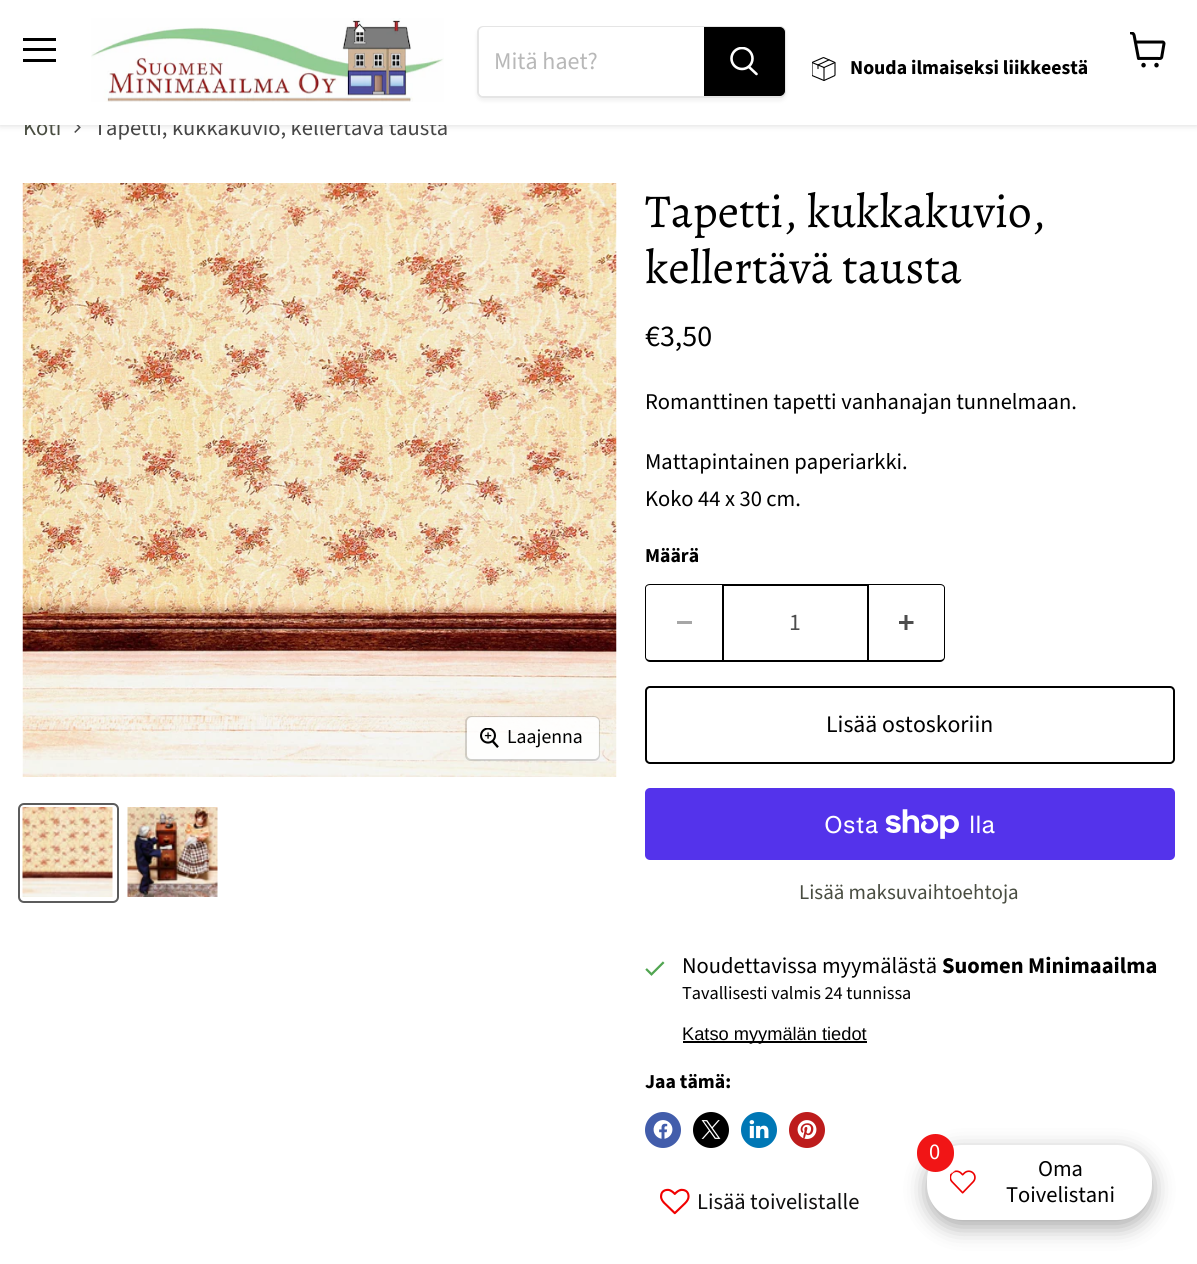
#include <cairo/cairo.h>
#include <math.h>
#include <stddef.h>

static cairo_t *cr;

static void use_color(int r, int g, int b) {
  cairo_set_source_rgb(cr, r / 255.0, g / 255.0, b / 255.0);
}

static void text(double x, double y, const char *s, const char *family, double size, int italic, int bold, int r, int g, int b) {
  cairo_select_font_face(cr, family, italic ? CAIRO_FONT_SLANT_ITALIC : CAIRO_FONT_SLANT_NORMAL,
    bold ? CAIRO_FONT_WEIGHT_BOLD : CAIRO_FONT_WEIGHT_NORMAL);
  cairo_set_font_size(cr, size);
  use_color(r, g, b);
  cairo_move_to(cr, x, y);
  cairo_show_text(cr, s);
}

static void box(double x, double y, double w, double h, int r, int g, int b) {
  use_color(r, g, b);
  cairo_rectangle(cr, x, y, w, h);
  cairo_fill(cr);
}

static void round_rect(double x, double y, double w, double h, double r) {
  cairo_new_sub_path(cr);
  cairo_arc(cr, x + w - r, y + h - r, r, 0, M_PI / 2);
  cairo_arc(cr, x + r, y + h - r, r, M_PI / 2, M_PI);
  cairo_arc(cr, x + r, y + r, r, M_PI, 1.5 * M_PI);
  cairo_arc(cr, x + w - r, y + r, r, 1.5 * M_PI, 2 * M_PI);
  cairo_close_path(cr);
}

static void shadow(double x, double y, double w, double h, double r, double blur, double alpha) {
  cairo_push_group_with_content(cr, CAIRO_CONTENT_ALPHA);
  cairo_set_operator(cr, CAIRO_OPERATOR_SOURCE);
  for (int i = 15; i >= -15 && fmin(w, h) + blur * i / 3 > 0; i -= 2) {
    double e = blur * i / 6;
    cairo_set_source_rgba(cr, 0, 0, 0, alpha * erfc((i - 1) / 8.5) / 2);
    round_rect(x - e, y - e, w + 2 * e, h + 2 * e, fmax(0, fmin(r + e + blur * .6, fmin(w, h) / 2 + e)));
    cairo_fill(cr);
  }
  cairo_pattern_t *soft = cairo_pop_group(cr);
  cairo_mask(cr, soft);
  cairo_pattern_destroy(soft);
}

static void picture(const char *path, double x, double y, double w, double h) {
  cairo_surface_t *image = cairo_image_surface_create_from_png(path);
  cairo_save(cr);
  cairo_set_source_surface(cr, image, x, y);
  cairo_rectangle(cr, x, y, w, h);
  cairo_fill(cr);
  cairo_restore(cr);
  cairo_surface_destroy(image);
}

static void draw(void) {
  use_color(255, 255, 255);
  cairo_paint(cr);
  picture("img_04.png", 74, 125, 7, 8);
  use_color(128, 128, 128);
  shadow(0, 2, 1197, 124, 0, 3, 0.25);
  picture("img_05.png", 22, 183, 595, 594);
  round_rect(466, 717, 133, 43, 5);
  cairo_set_source_rgba(cr, 0, 0, 0, 0.15);
  cairo_stroke(cr);
  cairo_set_source_rgba(cr, 1, 1, 1, 0.9);
  round_rect(467, 717, 132, 42, 5);
  cairo_fill(cr);
  picture("img_06.png", 480, 728, 19, 20);
  round_rect(19, 804, 99, 98, 5);
  use_color(92, 92, 92);
  cairo_stroke(cr);
  picture("img_07.png", 22, 807, 91, 90);
  picture("img_08.png", 127, 807, 91, 90);
  use_color(0, 0, 0);
  cairo_set_fill_rule(cr, CAIRO_FILL_RULE_EVEN_ODD);
  cairo_new_path(cr);
  cairo_move_to(cr, 650, 584);
  cairo_line_to(cr, 722, 584);
  cairo_line_to(cr, 722, 662);
  cairo_line_to(cr, 650, 662);
  cairo_curve_to(cr, 647, 662, 645, 659, 645, 657);
  cairo_line_to(cr, 645, 588);
  cairo_curve_to(cr, 645, 586, 647, 584, 650, 584);
  cairo_close_path(cr);
  cairo_move_to(cr, 650, 585);
  cairo_line_to(cr, 722, 585);
  cairo_line_to(cr, 722, 660);
  cairo_line_to(cr, 650, 660);
  cairo_curve_to(cr, 648, 660, 646, 659, 646, 657);
  cairo_line_to(cr, 646, 588);
  cairo_curve_to(cr, 646, 586, 648, 585, 650, 585);
  cairo_close_path(cr);
  cairo_fill(cr);
  box(677, 621, 15, 3, 166, 166, 166);
  cairo_rectangle(cr, 723, 585, 145, 76);
  use_color(0, 0, 0);
  cairo_stroke(cr);
  cairo_new_path(cr);
  cairo_move_to(cr, 868, 584);
  cairo_line_to(cr, 940, 584);
  cairo_curve_to(cr, 943, 584, 945, 586, 945, 588);
  cairo_line_to(cr, 945, 657);
  cairo_curve_to(cr, 945, 659, 943, 662, 940, 662);
  cairo_line_to(cr, 868, 662);
  cairo_close_path(cr);
  cairo_move_to(cr, 868, 585);
  cairo_line_to(cr, 940, 585);
  cairo_curve_to(cr, 942, 585, 944, 586, 944, 588);
  cairo_line_to(cr, 944, 657);
  cairo_curve_to(cr, 944, 659, 942, 660, 940, 660);
  cairo_line_to(cr, 868, 660);
  cairo_close_path(cr);
  cairo_fill(cr);
  picture("img_09.png", 899, 615, 15, 15);
  round_rect(646, 687, 528, 76, 4);
  cairo_stroke(cr);
  use_color(84, 51, 235);
  round_rect(645, 788, 530, 72, 5);
  cairo_fill(cr);
  picture("img_10.png", 885, 809, 74, 30);
  picture("img_11.png", 645, 961, 20, 15);
  box(683, 1041, 184, 2, 0, 0, 0);
  use_color(66, 93, 171);
  cairo_arc(cr, 663, 1130, 18, 0, 2 * M_PI);
  cairo_fill(cr);
  picture("img_12.png", 653, 1120, 20, 19);
  use_color(0, 0, 0);
  cairo_arc(cr, 711, 1130, 18, 0, 2 * M_PI);
  cairo_fill(cr);
  picture("img_13.png", 701, 1120, 20, 19);
  use_color(0, 119, 181);
  cairo_arc(cr, 759, 1130, 18, 0, 2 * M_PI);
  cairo_fill(cr);
  picture("img_14.png", 749, 1120, 20, 19);
  use_color(189, 28, 28);
  cairo_arc(cr, 807, 1130, 18, 0, 2 * M_PI);
  cairo_fill(cr);
  picture("img_15.png", 797, 1120, 20, 19);
  picture("img_16.png", 660, 1188, 30, 27);
  use_color(0, 0, 0);
  shadow(927, 1152, 225, 75, 35, 11, 0.35);
  use_color(255, 255, 255);
  round_rect(927, 1145, 225, 75, 35);
  cairo_fill(cr);
  picture("img_17.png", 950, 1170, 26, 24);
  use_color(241, 21, 22);
  round_rect(917, 1134, 37, 38, 18.5);
  cairo_fill(cr);
  text(23, 135, "Koti", "Source Sans Pro", 22.5, 0, 0, 73, 77, 65);
  text(94, 135, "Tapetti, kukkakuvio, kellertävä tausta", "Source Sans Pro", 22.5, 0, 0, 70, 70, 70);
  box(0, 0, 1197, 125, 255, 255, 255);
  cairo_save(cr);
  cairo_new_path(cr);
  cairo_move_to(cr, 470, 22);
  cairo_line_to(cr, 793, 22);
  cairo_line_to(cr, 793, 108);
  cairo_line_to(cr, 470, 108);
  cairo_close_path(cr);
  cairo_move_to(cr, 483, 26);
  cairo_line_to(cr, 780, 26);
  cairo_curve_to(cr, 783.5, 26, 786, 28.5, 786, 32);
  cairo_line_to(cr, 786, 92);
  cairo_curve_to(cr, 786, 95.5, 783.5, 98, 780, 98);
  cairo_line_to(cr, 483, 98);
  cairo_curve_to(cr, 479.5, 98, 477, 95.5, 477, 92);
  cairo_line_to(cr, 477, 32);
  cairo_curve_to(cr, 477, 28.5, 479.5, 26, 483, 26);
  cairo_close_path(cr);
  cairo_clip(cr);
  use_color(128, 128, 128);
  shadow(477, 29, 309, 72, 6, 2, 0.11);
  cairo_restore(cr);
  round_rect(478, 27, 307, 70, 5);
  cairo_set_source_rgba(cr, 0.502, 0.502, 0.502, 0.2);
  cairo_stroke(cr);
  use_color(255, 255, 255);
  cairo_new_path(cr);
  cairo_move_to(cr, 484, 27);
  cairo_line_to(cr, 704, 27);
  cairo_line_to(cr, 704, 96);
  cairo_line_to(cr, 484, 96);
  cairo_curve_to(cr, 481, 96, 479, 94, 479, 91);
  cairo_line_to(cr, 479, 32);
  cairo_curve_to(cr, 479, 29, 481, 27, 484, 27);
  cairo_close_path(cr);
  cairo_fill(cr);
  text(494, 69, "Mitä haet?", "Source Sans Pro", 24, 0, 0, 184, 184, 184);
  use_color(0, 0, 0);
  cairo_new_path(cr);
  cairo_move_to(cr, 705, 28);
  cairo_line_to(cr, 780, 28);
  cairo_curve_to(cr, 782, 28, 784, 30, 784, 32);
  cairo_line_to(cr, 784, 91);
  cairo_curve_to(cr, 784, 93, 782, 95, 780, 95);
  cairo_line_to(cr, 705, 95);
  cairo_close_path(cr);
  cairo_fill_preserve(cr);
  cairo_stroke(cr);
  cairo_new_path(cr);
  cairo_move_to(cr, 756.5, 74);
  cairo_line_to(cr, 749, 67);
  use_color(255, 255, 255);
  cairo_set_line_width(cr, 2.6);
  cairo_set_line_cap(cr, CAIRO_LINE_CAP_ROUND);
  cairo_stroke(cr);
  cairo_save(cr);
  cairo_set_fill_rule(cr, CAIRO_FILL_RULE_WINDING);
  cairo_rectangle(cr, 729, 47, 30, 31);
  cairo_clip(cr);
  cairo_arc(cr, 742, 58.5, 10.5, 0, 2 * M_PI);
  cairo_set_line_cap(cr, CAIRO_LINE_CAP_BUTT);
  cairo_stroke(cr);
  cairo_restore(cr);
  picture("img_03.png", 1130, 32, 36, 36);
  box(23, 59, 33, 3, 0, 0, 0);
  box(23, 48, 33, 3, 0, 0, 0);
  box(23, 38, 33, 3, 0, 0, 0);
  picture("img_02.png", 812, 57, 24, 24);
  text(850, 74, "Nouda ilmaiseksi liikkeestä", "Source Sans Pro", 19.75, 0, 1, 0, 0, 0);
  picture("img_01.png", 91, 18, 353, 84);
  text(507, 743, "Laajenna", "Source Sans Pro", 19.75, 0, 0, 0, 0, 0);
  text(645, 227, "Tapetti, kukkakuvio,", "Alegreya", 47.25, 0, 0, 0, 0, 0);
  text(645, 283, "kellertävä tausta", "Alegreya", 47.25, 0, 0, 0, 0, 0);
  text(645, 346, "€3,50", "Source Sans Pro", 30, 0, 0, 0, 0, 0);
  text(645, 409, "Romanttinen tapetti vanhanajan tunnelmaan.", "Source Sans Pro", 22.5, 0, 0, 0, 0, 0);
  text(645, 469, "Mattapintainen paperiarkki.", "Source Sans Pro", 22.5, 0, 0, 0, 0, 0);
  text(645, 506, "Koko 44 x 30 cm.", "Source Sans Pro", 22.5, 0, 0, 0, 0, 0);
  text(645, 562, "Määrä", "Source Sans Pro", 19.75, 0, 1, 0, 0, 0);
  text(789, 630, "1", "Source Sans Pro", 23.75, 0, 0, 77, 77, 77);
  text(826, 732, "Lisää ostoskoriin", "Source Sans Pro", 23.75, 0, 0, 0, 0, 0);
  text(824, 833, "Osta", "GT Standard", 24, 0, 0, 255, 255, 255);
  text(969, 833, "lla", "GT Standard", 24, 0, 0, 255, 255, 255);
  text(799, 899, "Lisää maksuvaihtoehtoja", "Source Sans Pro", 21, 0, 0, 73, 77, 65);
  text(682, 973, "Noudettavissa myymälästä", "Source Sans Pro", 22.5, 0, 0, 0, 0, 0);
  text(942, 973, "Suomen Minimaailma", "Source Sans Pro", 22.5, 0, 1, 0, 0, 0);
  text(682, 999, "Tavallisesti valmis 24 tunnissa", "Source Sans Pro", 18.25, 0, 0, 0, 0, 0);
  text(682, 1040, "Katso myymälän tiedot", "Liberation Sans", 18.25, 0, 0, 0, 0, 0);
  text(645, 1088, "Jaa tämä:", "Source Sans Pro", 19.75, 0, 1, 0, 0, 0);
  text(697, 1209, "Lisää toivelistalle", "Source Sans Pro", 22.5, 0, 0, 16, 15, 15);
  text(929, 1159, "0", "Source Sans Pro", 22.5, 0, 0, 255, 255, 255);
  text(1038, 1176, "Oma", "Source Sans Pro", 22.5, 0, 0, 0, 0, 0);
  text(1006, 1202, "Toivelistani", "Source Sans Pro", 22.5, 0, 0, 0, 0, 0);
}

int main(void) {
  cairo_surface_t *surface = cairo_image_surface_create(CAIRO_FORMAT_RGB24, 1197, 1264);
  cr = cairo_create(surface);
  cairo_font_options_t *options = cairo_font_options_create();
  cairo_font_options_set_hint_metrics(options, CAIRO_HINT_METRICS_OFF);
  cairo_font_options_set_hint_style(options, CAIRO_HINT_STYLE_NONE);
  cairo_set_font_options(cr, options);
  cairo_set_miter_limit(cr, 4);
  draw();
  cairo_surface_write_to_png(surface, "out.png");
  cairo_font_options_destroy(options);
  cairo_destroy(cr);
  cairo_surface_destroy(surface);
  return 0;
}
